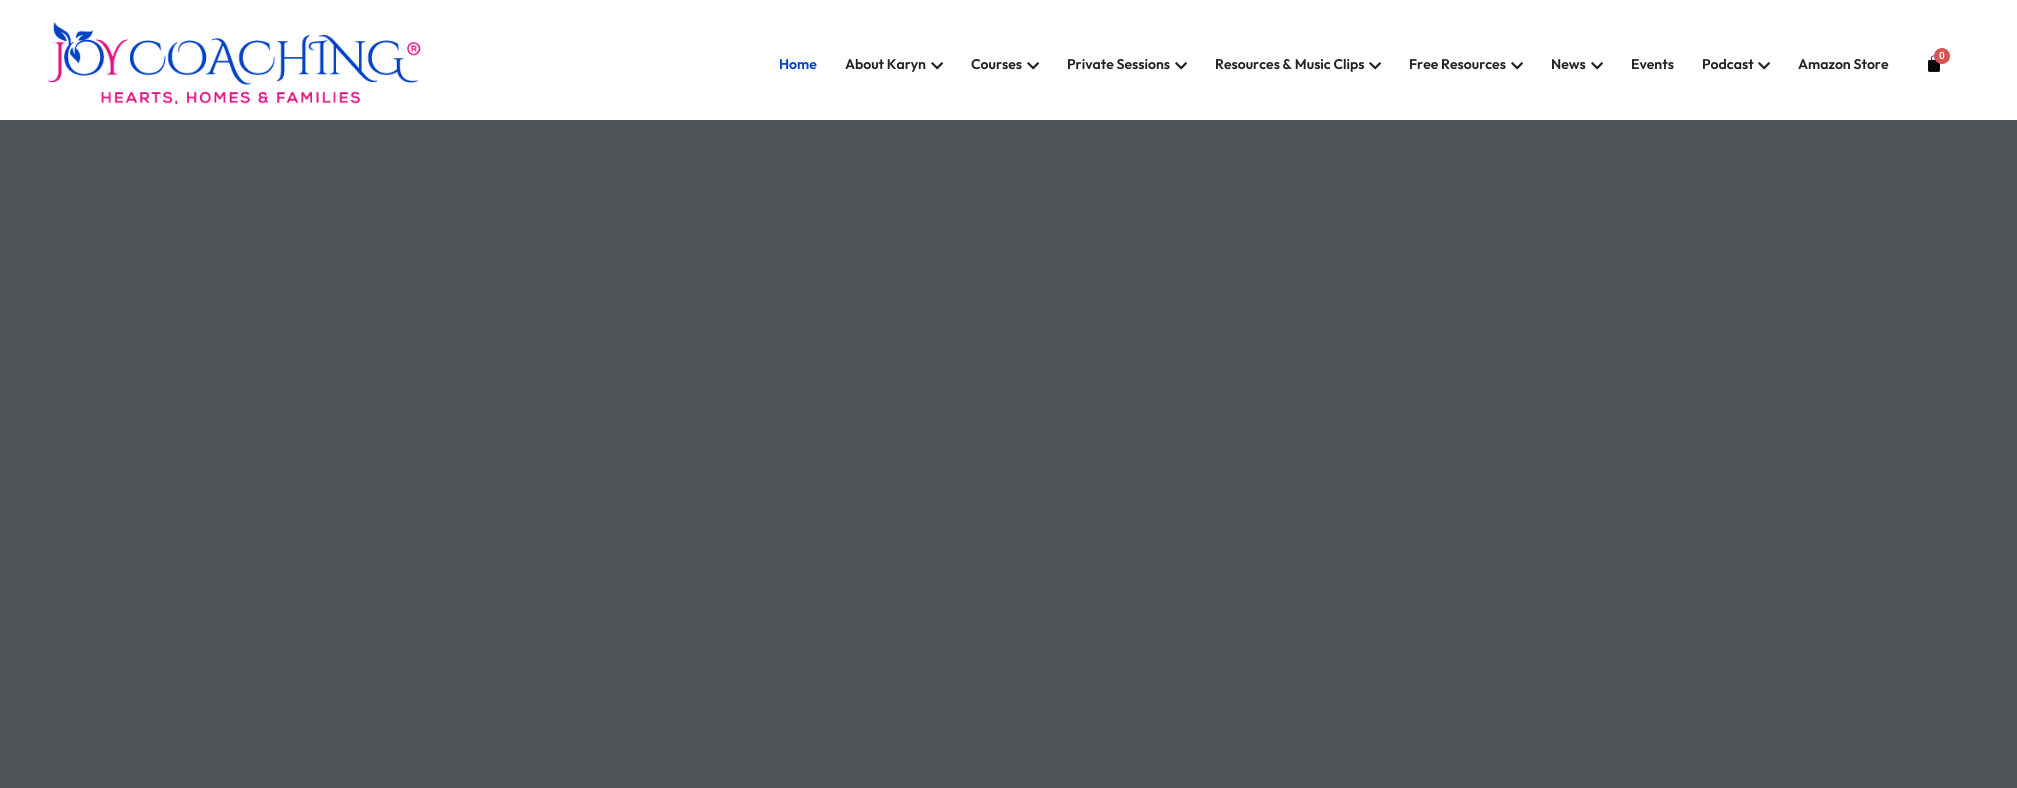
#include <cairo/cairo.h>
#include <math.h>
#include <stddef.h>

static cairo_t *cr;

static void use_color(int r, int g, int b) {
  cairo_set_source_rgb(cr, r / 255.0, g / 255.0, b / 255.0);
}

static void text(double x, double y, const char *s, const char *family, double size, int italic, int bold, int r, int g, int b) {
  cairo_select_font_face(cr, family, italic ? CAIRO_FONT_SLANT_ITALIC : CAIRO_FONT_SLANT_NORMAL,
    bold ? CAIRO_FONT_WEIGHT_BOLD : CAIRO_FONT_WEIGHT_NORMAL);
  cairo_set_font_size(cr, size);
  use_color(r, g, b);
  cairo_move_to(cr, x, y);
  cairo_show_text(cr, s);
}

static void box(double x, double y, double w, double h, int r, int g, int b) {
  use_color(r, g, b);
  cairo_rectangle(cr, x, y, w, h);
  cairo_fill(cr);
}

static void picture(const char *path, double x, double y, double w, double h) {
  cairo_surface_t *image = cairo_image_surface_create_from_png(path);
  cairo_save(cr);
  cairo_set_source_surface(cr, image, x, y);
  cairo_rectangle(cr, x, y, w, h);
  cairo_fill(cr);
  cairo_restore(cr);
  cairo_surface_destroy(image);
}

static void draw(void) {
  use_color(255, 255, 255);
  cairo_paint(cr);
  picture("img_01.png", 47, 22, 374, 83);
  picture("img_02.png", 1928, 55, 12, 17);
  use_color(217, 83, 79);
  cairo_arc(cr, 1942, 56, 8, 0, 2 * M_PI);
  cairo_fill(cr);
  picture("img_03.png", 931, 62, 12, 8);
  picture("img_03.png", 1027, 62, 12, 8);
  picture("img_03.png", 1175, 62, 12, 8);
  picture("img_03.png", 1369, 62, 12, 8);
  picture("img_03.png", 1511, 62, 12, 8);
  picture("img_03.png", 1591, 62, 12, 8);
  picture("img_03.png", 1758, 62, 12, 8);
  box(0, 120, 2017, 668, 81, 85, 88);
  text(1939, 59, "0", "Roboto SemiBold", 10, 0, 0, 255, 255, 255);
  text(779, 69, "Home", "Outfit SemiBold", 14, 0, 0, 0, 65, 193);
  text(845, 69, "About Karyn", "Outfit SemiBold", 14, 0, 0, 34, 34, 34);
  text(971, 69, "Courses", "Outfit SemiBold", 14, 0, 0, 34, 34, 34);
  text(1067, 69, "Private Sessions", "Outfit SemiBold", 14, 0, 0, 34, 34, 34);
  text(1215, 69, "Resources & Music Clips", "Outfit SemiBold", 14, 0, 0, 34, 34, 34);
  text(1409, 69, "Free Resources", "Outfit SemiBold", 14, 0, 0, 34, 34, 34);
  text(1551, 69, "News", "Outfit SemiBold", 14, 0, 0, 34, 34, 34);
  text(1631, 69, "Events", "Outfit SemiBold", 14, 0, 0, 34, 34, 34);
  text(1702, 69, "Podcast", "Outfit SemiBold", 14, 0, 0, 34, 34, 34);
  text(1798, 69, "Amazon Store", "Outfit SemiBold", 14, 0, 0, 34, 34, 34);
}

int main(void) {
  cairo_surface_t *surface = cairo_image_surface_create(CAIRO_FORMAT_RGB24, 2017, 788);
  cr = cairo_create(surface);
  cairo_font_options_t *options = cairo_font_options_create();
  cairo_font_options_set_hint_metrics(options, CAIRO_HINT_METRICS_OFF);
  cairo_font_options_set_hint_style(options, CAIRO_HINT_STYLE_NONE);
  cairo_set_font_options(cr, options);
  cairo_set_miter_limit(cr, 4);
  draw();
  cairo_surface_write_to_png(surface, "out.png");
  cairo_font_options_destroy(options);
  cairo_destroy(cr);
  cairo_surface_destroy(surface);
  return 0;
}
